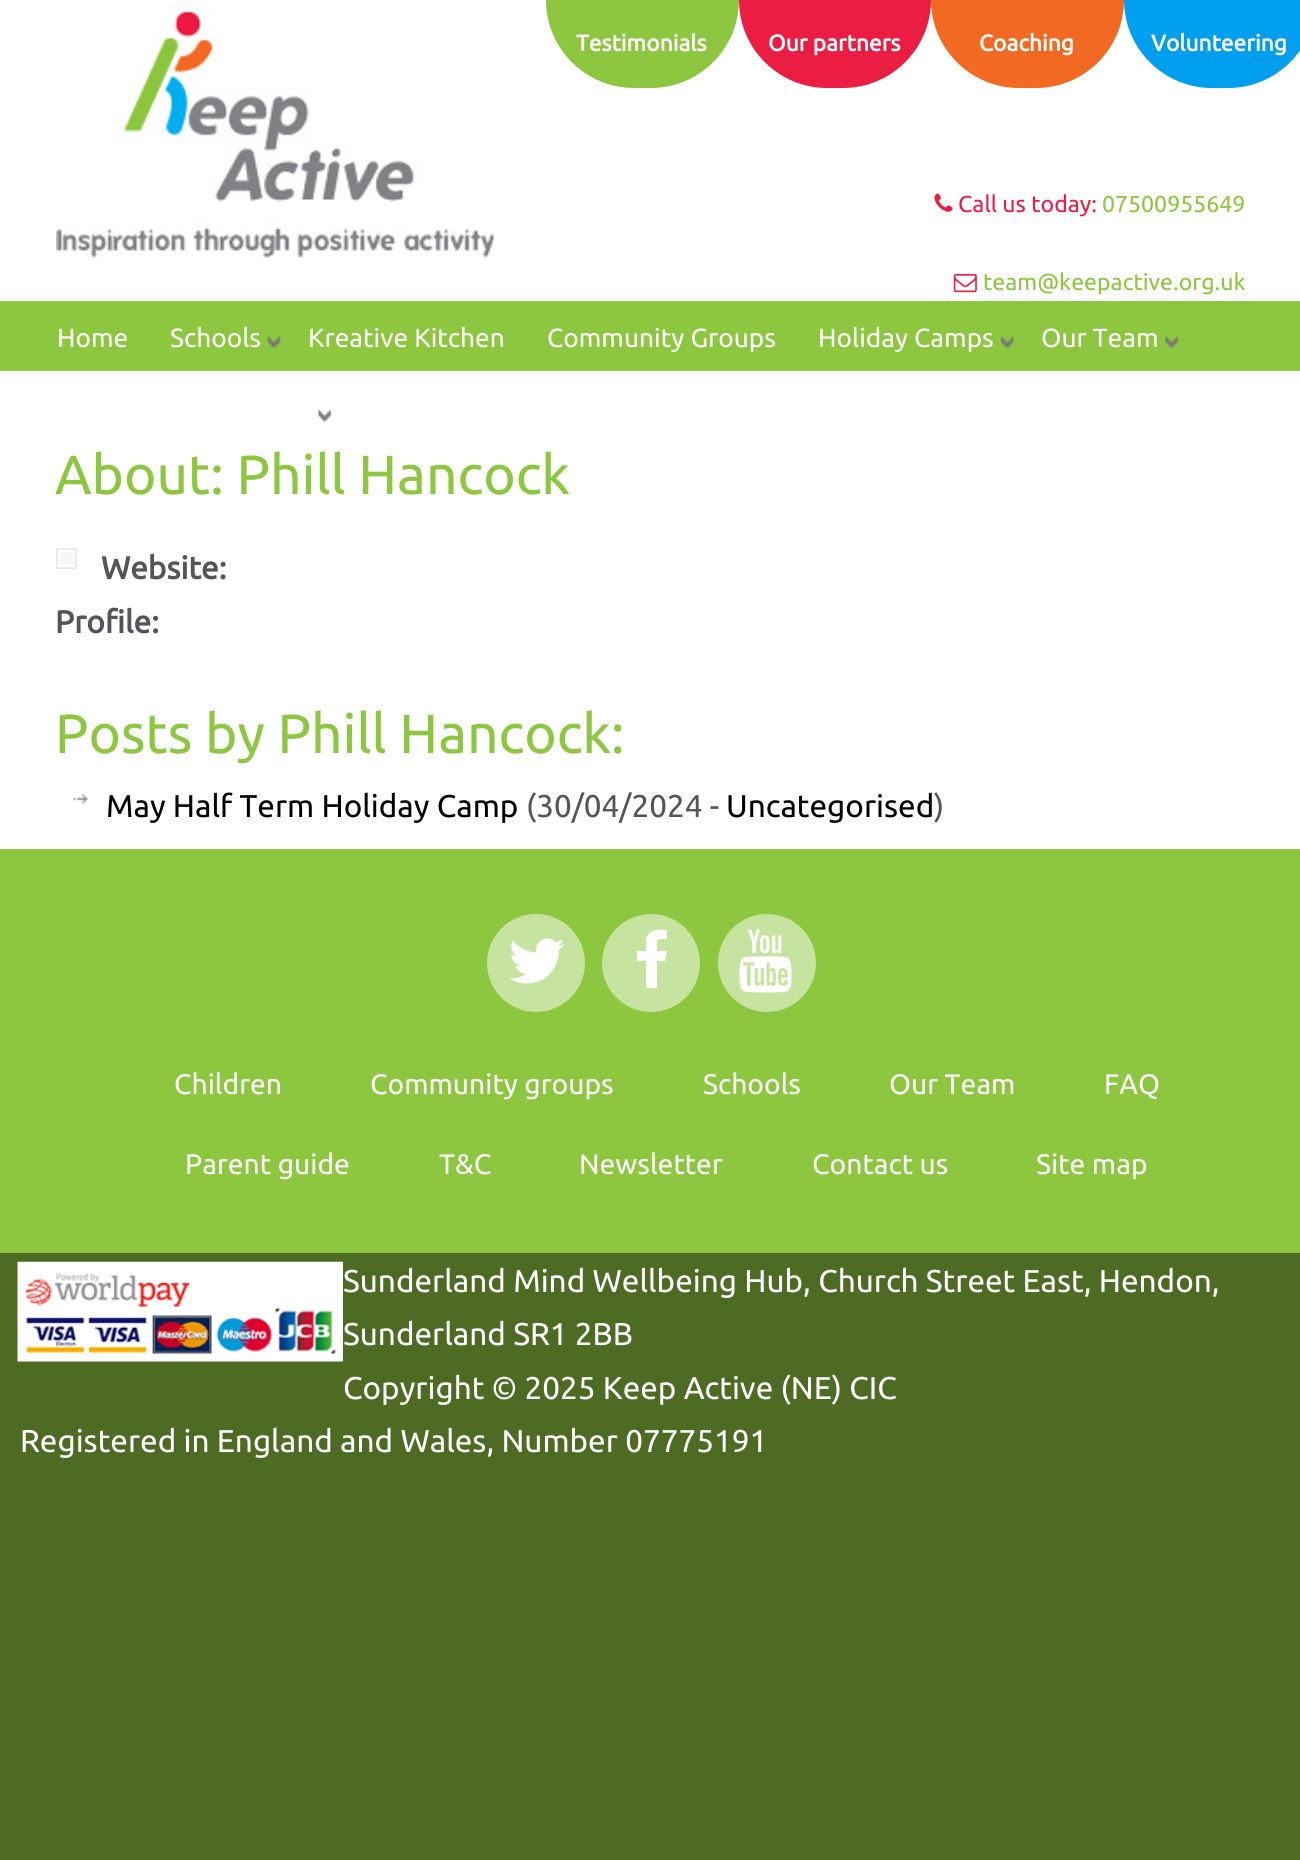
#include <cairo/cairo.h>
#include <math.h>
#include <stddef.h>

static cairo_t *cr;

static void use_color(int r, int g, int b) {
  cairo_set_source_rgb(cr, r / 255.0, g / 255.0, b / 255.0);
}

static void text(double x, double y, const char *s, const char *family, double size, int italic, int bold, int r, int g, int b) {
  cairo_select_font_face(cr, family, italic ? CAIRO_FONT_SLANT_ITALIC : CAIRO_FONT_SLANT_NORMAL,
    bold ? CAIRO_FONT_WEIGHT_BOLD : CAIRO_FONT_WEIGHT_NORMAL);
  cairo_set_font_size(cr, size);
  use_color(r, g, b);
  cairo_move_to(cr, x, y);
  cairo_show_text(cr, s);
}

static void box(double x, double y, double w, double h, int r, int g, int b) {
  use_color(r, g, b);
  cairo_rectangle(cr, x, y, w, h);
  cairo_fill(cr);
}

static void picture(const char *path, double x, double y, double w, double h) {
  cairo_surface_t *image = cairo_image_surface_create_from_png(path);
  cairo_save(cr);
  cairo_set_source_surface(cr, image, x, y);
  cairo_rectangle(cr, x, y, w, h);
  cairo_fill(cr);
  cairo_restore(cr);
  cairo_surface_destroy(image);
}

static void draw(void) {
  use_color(77, 107, 35);
  cairo_paint(cr);
  box(0, 0, 1300, 849, 255, 255, 255);
  use_color(141, 198, 63);
  cairo_new_path(cr);
  cairo_move_to(cr, 546, 0);
  cairo_line_to(cr, 739, 0);
  cairo_curve_to(cr, 739, 48.5, 699.5, 88, 651, 88);
  cairo_line_to(cr, 634, 88);
  cairo_curve_to(cr, 585.5, 88, 546, 48.5, 546, 0);
  cairo_close_path(cr);
  cairo_fill(cr);
  use_color(236, 29, 66);
  cairo_new_path(cr);
  cairo_move_to(cr, 739, 0);
  cairo_line_to(cr, 931, 0);
  cairo_curve_to(cr, 931, 48.5, 891.5, 88, 843, 88);
  cairo_line_to(cr, 827, 88);
  cairo_curve_to(cr, 778.5, 88, 739, 48.5, 739, 0);
  cairo_close_path(cr);
  cairo_fill(cr);
  use_color(242, 105, 34);
  cairo_new_path(cr);
  cairo_move_to(cr, 931, 0);
  cairo_line_to(cr, 1124, 0);
  cairo_curve_to(cr, 1124, 48.5, 1084.5, 88, 1036, 88);
  cairo_line_to(cr, 1019, 88);
  cairo_curve_to(cr, 970.5, 88, 931, 48.5, 931, 0);
  cairo_close_path(cr);
  cairo_fill(cr);
  use_color(0, 158, 239);
  cairo_new_path(cr);
  cairo_move_to(cr, 1124, 0);
  cairo_line_to(cr, 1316, 0);
  cairo_curve_to(cr, 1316, 48.5, 1276.5, 88, 1228, 88);
  cairo_line_to(cr, 1212, 88);
  cairo_curve_to(cr, 1163.5, 88, 1124, 48.5, 1124, 0);
  cairo_close_path(cr);
  cairo_fill(cr);
  picture("img_01.png", 56, 5, 438, 253);
  picture("img_02.png", 934, 193, 19, 19);
  picture("img_03.png", 953, 274, 24, 19);
  box(0, 301, 1300, 70, 141, 198, 63);
  picture("img_04.png", 267, 335, 14, 14);
  picture("img_05.png", 1000, 335, 14, 14);
  picture("img_06.png", 1165, 335, 14, 14);
  picture("img_07.png", 318, 409, 14, 13);
  box(60, 552, 13, 13, 246, 246, 246);
  cairo_rectangle(cr, 57, 549, 19, 19);
  use_color(234, 234, 234);
  cairo_stroke(cr);
  picture("img_08.png", 73, 794, 15, 10);
  box(0, 849, 1300, 404, 141, 198, 63);
  use_color(198, 227, 159);
  cairo_arc(cr, 536, 963, 49, 0, 2 * M_PI);
  cairo_fill(cr);
  picture("img_09.png", 509, 938, 56, 46);
  cairo_arc(cr, 651, 963, 49, 0, 2 * M_PI);
  cairo_fill(cr);
  use_color(255, 255, 255);
  cairo_new_path(cr);
  cairo_move_to(cr, 667, 930);
  cairo_line_to(cr, 667, 939);
  cairo_curve_to(cr, 655, 939, 657, 939, 657, 951);
  cairo_line_to(cr, 667, 951);
  cairo_line_to(cr, 665, 961);
  cairo_line_to(cr, 657, 961);
  cairo_line_to(cr, 657, 988);
  cairo_line_to(cr, 646, 988);
  cairo_line_to(cr, 646, 961);
  cairo_line_to(cr, 637, 961);
  cairo_line_to(cr, 637, 951);
  cairo_line_to(cr, 646, 951);
  cairo_line_to(cr, 646, 940);
  cairo_curve_to(cr, 648, 929, 658, 929, 667, 930);
  cairo_close_path(cr);
  cairo_fill(cr);
  use_color(198, 227, 159);
  cairo_arc(cr, 767, 963, 49, 0, 2 * M_PI);
  cairo_fill(cr);
  picture("img_10.png", 739, 929, 53, 64);
  picture("img_11.png", 17, 1261, 326, 101);
  text(576, 51, "Testimonials", "Ubuntu", 22.75, 0, 1, 255, 255, 255);
  text(768, 51, "Our partners", "Ubuntu", 22.75, 0, 1, 255, 255, 255);
  text(979, 51, "Coaching", "Ubuntu", 22.75, 0, 1, 255, 255, 255);
  text(1151, 51, "Volunteering", "Ubuntu", 22.75, 0, 1, 255, 255, 255);
  text(958, 212, "Call us today:", "Ubuntu", 23.1, 0, 0, 236, 29, 66);
  text(1102, 212, "07500955649", "Ubuntu", 23.1, 0, 0, 141, 198, 63);
  text(983, 290, "team@keepactive.org.uk", "Ubuntu", 23.1, 0, 0, 141, 198, 63);
  text(57, 347, "Home", "Ubuntu", 26.25, 0, 0, 255, 255, 255);
  text(170, 347, "Schools", "Ubuntu", 26.25, 0, 0, 255, 255, 255);
  text(308, 347, "Kreative Kitchen", "Ubuntu", 26.25, 0, 0, 255, 255, 255);
  text(547, 347, "Community Groups", "Ubuntu", 26.25, 0, 0, 255, 255, 255);
  text(818, 347, "Holiday Camps", "Ubuntu", 26.25, 0, 0, 255, 255, 255);
  text(1041, 347, "Our Team", "Ubuntu", 26.25, 0, 0, 255, 255, 255);
  text(55, 494, "About: Phill Hancock", "Ubuntu", 55.1, 0, 0, 141, 198, 63);
  text(101, 579, "Website:", "Ubuntu", 31.5, 0, 1, 82, 86, 89);
  text(55, 633, "Profile:", "Ubuntu", 31.5, 0, 1, 82, 86, 89);
  text(55, 753, "Posts by Phill Hancock:", "Ubuntu", 55.1, 0, 0, 141, 198, 63);
  text(106, 817, "May Half Term Holiday Camp", "Ubuntu", 31.5, 0, 0, 0, 0, 0);
  text(526, 817, "(30/04/2024 -", "Ubuntu", 31.5, 0, 0, 82, 86, 89);
  text(726, 817, "Uncategorised", "Ubuntu", 31.5, 0, 0, 0, 0, 0);
  text(934, 817, ")", "Ubuntu", 31.5, 0, 0, 82, 86, 89);
  text(174, 1094, "Children", "Ubuntu", 28.25, 0, 0, 255, 255, 255);
  text(370, 1094, "Community groups", "Ubuntu", 28.25, 0, 0, 255, 255, 255);
  text(703, 1094, "Schools", "Ubuntu", 28.25, 0, 0, 255, 255, 255);
  text(889, 1094, "Our Team", "Ubuntu", 28.25, 0, 0, 255, 255, 255);
  text(1104, 1094, "FAQ", "Ubuntu", 28.25, 0, 0, 255, 255, 255);
  text(185, 1174, "Parent guide", "Ubuntu", 28.25, 0, 0, 255, 255, 255);
  text(439, 1174, "T&C", "Ubuntu", 28.25, 0, 0, 255, 255, 255);
  text(579, 1174, "Newsletter", "Ubuntu", 28.25, 0, 0, 255, 255, 255);
  text(812, 1174, "Contact us", "Ubuntu", 28.25, 0, 0, 255, 255, 255);
  text(1036, 1174, "Site map", "Ubuntu", 28.25, 0, 0, 255, 255, 255);
  text(343, 1292, "Sunderland Mind Wellbeing Hub, Church Street East, Hendon,", "Ubuntu", 31.5, 0, 0, 255, 255, 255);
  text(343, 1345, "Sunderland SR1 2BB", "Ubuntu", 31.5, 0, 0, 255, 255, 255);
  text(343, 1399, "Copyright © 2025 Keep Active (NE) CIC", "Ubuntu", 31.5, 0, 0, 255, 255, 255);
  text(20, 1452, "Registered in England and Wales, Number 07775191", "Ubuntu", 31.5, 0, 0, 255, 255, 255);
}

int main(void) {
  cairo_surface_t *surface = cairo_image_surface_create(CAIRO_FORMAT_RGB24, 1300, 1860);
  cr = cairo_create(surface);
  cairo_font_options_t *options = cairo_font_options_create();
  cairo_font_options_set_hint_metrics(options, CAIRO_HINT_METRICS_OFF);
  cairo_font_options_set_hint_style(options, CAIRO_HINT_STYLE_NONE);
  cairo_set_font_options(cr, options);
  cairo_set_miter_limit(cr, 4);
  draw();
  cairo_surface_write_to_png(surface, "out.png");
  cairo_font_options_destroy(options);
  cairo_destroy(cr);
  cairo_surface_destroy(surface);
  return 0;
}
